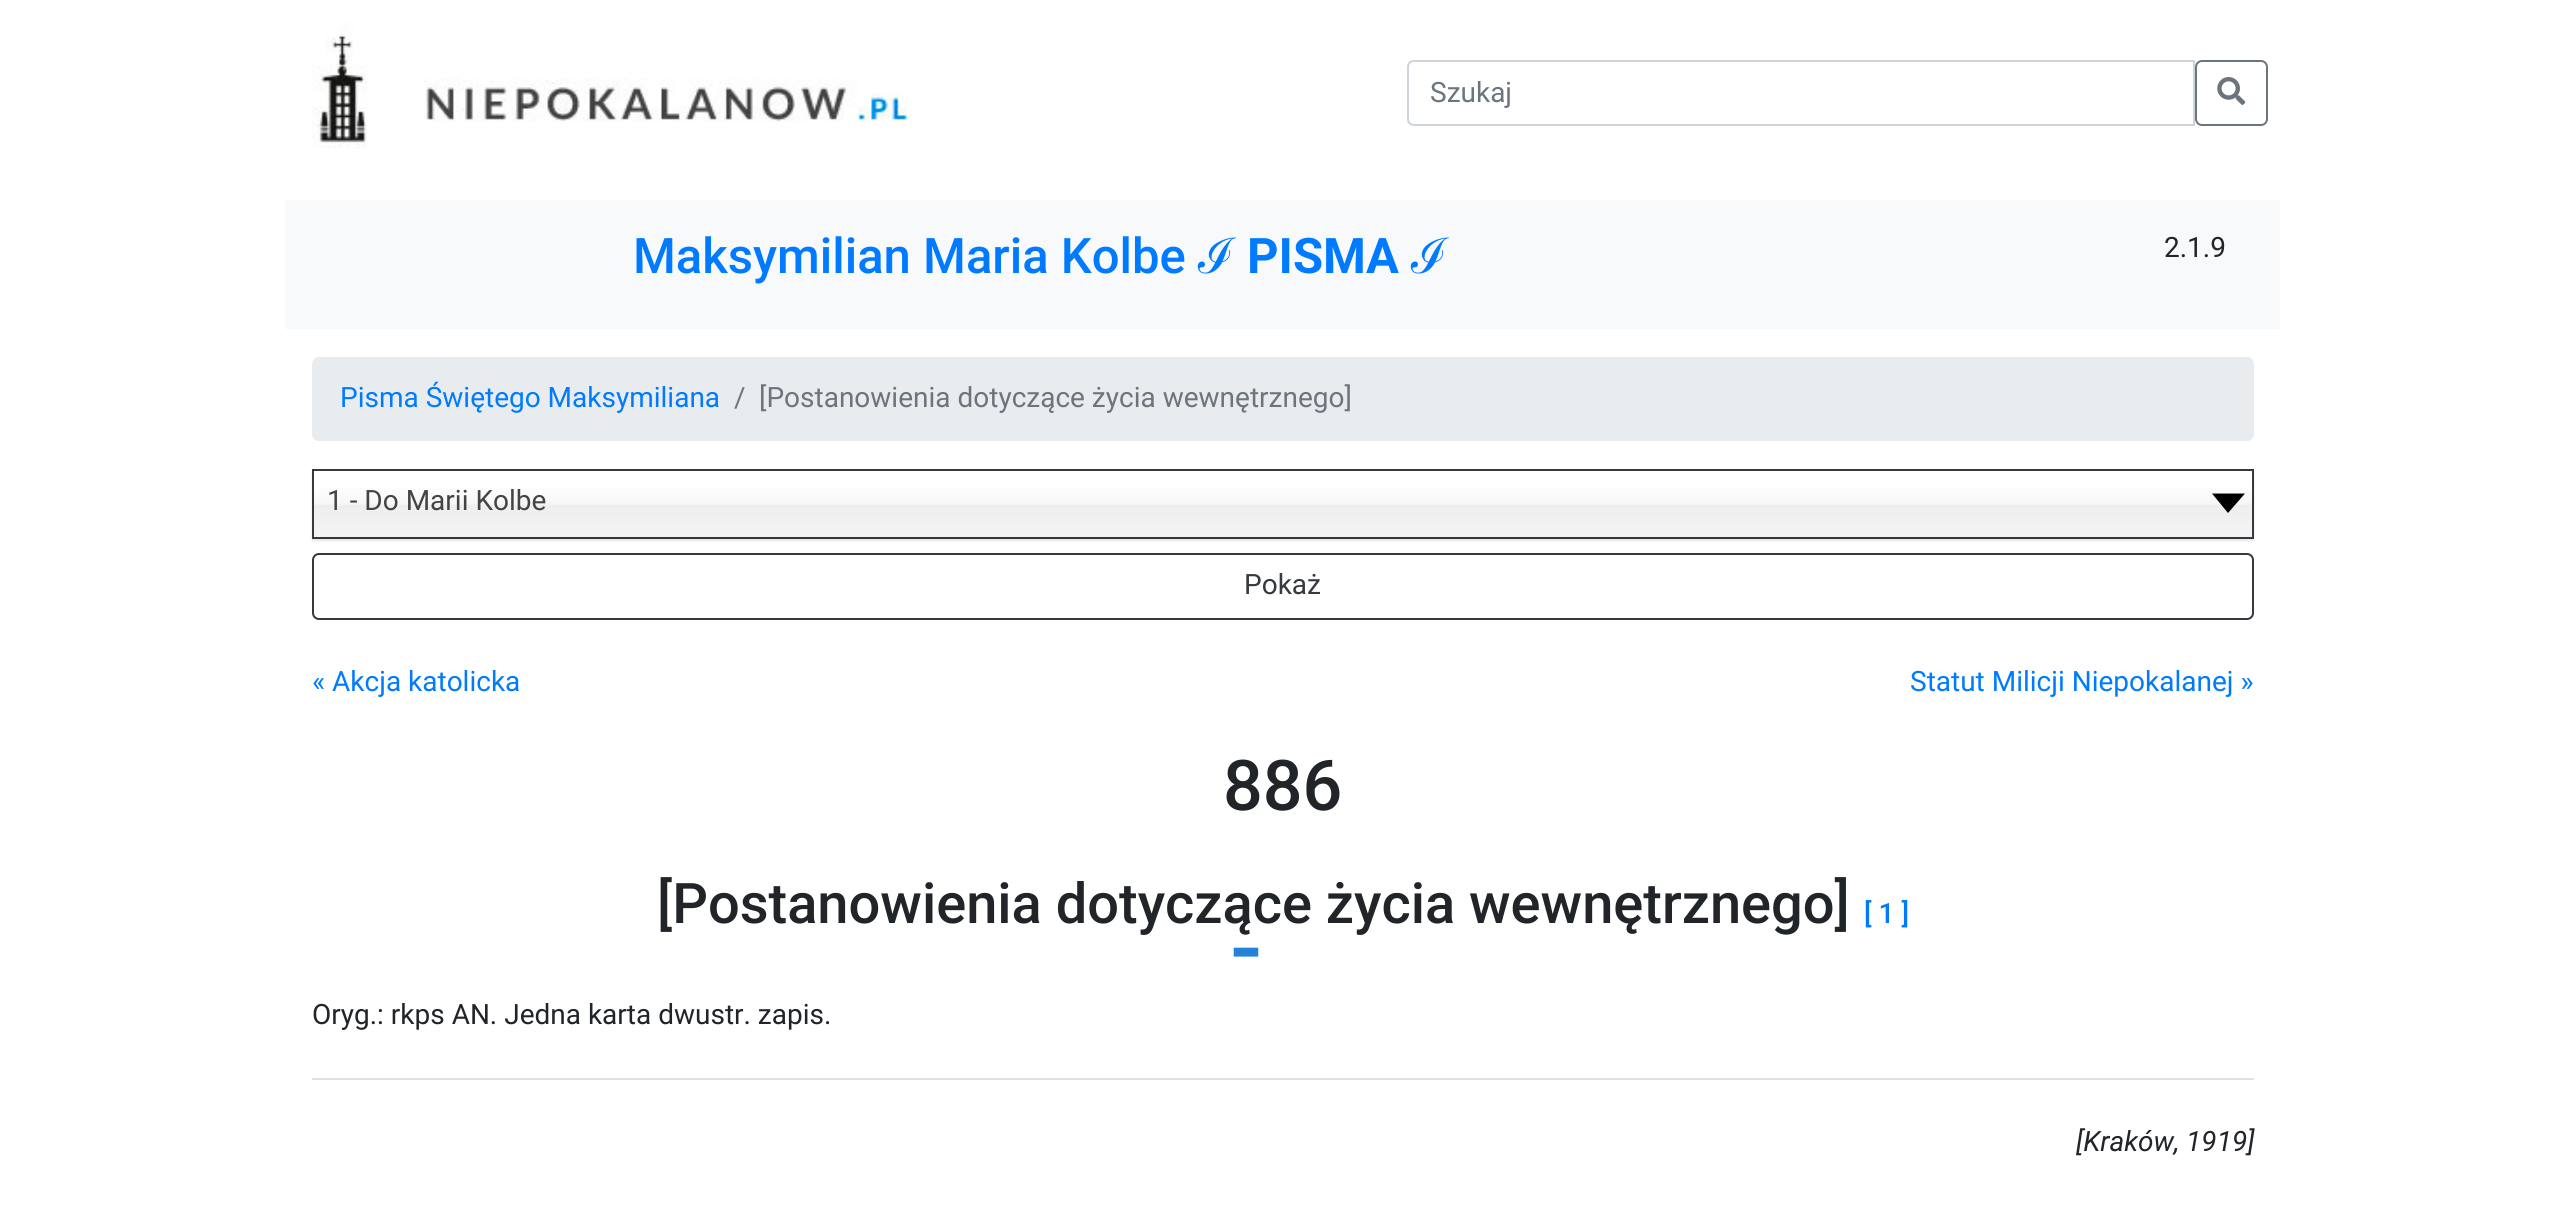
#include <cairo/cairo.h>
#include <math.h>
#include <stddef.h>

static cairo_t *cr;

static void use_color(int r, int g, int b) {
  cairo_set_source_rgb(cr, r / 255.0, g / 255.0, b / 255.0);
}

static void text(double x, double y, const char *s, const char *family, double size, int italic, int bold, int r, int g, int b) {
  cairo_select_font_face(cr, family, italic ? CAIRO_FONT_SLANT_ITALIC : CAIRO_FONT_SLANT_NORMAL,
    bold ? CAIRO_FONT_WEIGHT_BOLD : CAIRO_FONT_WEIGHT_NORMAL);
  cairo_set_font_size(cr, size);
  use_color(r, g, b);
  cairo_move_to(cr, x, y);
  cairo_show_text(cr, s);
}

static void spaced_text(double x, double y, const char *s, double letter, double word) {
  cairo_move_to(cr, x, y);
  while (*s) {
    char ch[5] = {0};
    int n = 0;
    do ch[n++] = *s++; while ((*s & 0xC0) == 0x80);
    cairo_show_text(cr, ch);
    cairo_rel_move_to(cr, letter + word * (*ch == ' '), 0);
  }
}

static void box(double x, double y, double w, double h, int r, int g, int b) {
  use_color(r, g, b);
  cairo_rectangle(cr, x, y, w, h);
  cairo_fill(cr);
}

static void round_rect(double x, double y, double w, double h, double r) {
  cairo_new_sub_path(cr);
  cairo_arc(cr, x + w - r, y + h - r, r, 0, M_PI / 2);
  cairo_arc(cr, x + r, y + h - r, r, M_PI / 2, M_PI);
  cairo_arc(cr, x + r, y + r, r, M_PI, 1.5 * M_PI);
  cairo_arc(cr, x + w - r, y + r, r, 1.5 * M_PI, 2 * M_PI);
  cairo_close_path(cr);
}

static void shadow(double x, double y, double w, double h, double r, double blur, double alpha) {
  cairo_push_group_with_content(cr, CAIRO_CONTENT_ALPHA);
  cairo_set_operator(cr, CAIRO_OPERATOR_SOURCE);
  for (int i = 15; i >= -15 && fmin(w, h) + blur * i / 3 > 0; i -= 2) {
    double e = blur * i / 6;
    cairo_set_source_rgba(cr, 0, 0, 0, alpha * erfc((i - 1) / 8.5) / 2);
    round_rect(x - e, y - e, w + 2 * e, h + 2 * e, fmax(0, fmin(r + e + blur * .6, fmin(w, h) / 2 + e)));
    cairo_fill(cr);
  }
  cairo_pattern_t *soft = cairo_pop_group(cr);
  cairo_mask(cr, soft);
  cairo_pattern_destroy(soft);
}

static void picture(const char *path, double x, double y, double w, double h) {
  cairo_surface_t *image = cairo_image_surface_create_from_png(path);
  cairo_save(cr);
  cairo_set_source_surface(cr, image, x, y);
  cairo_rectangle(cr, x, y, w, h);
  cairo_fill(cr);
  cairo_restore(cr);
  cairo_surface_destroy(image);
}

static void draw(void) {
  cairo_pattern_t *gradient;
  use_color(255, 255, 255);
  cairo_paint(cr);
  picture("img_01.png", 312, 23, 595, 126);
  cairo_new_path(cr);
  cairo_move_to(cr, 1414, 61);
  cairo_line_to(cr, 2194, 61);
  cairo_line_to(cr, 2194, 125);
  cairo_line_to(cr, 1414, 125);
  cairo_curve_to(cr, 1410.5, 125, 1408, 122.5, 1408, 119);
  cairo_line_to(cr, 1408, 67);
  cairo_curve_to(cr, 1408, 63.5, 1410.5, 61, 1414, 61);
  cairo_close_path(cr);
  use_color(206, 212, 218);
  cairo_stroke(cr);
  round_rect(2196, 61, 71, 64, 6);
  use_color(108, 117, 125);
  cairo_stroke(cr);
  picture("img_02.png", 2217, 77, 29, 28);
  box(285, 200, 1995, 129, 248, 249, 250);
  use_color(233, 236, 239);
  round_rect(312, 357, 1942, 84, 7);
  cairo_fill(cr);
  use_color(0, 0, 0);
  shadow(312, 471, 1942, 70, 0, 1, 0.1);
  gradient = cairo_pattern_create_linear(1283, 471, 1283, 537);
  cairo_pattern_add_color_stop_rgba(gradient, 0.2, 1, 1, 1, 1);
  cairo_pattern_add_color_stop_rgba(gradient, 0.5, 0.965, 0.965, 0.965, 1);
  cairo_pattern_add_color_stop_rgba(gradient, 0.52, 0.933, 0.933, 0.933, 1);
  cairo_pattern_add_color_stop_rgba(gradient, 1, 0.957, 0.957, 0.957, 1);
  cairo_set_source(cr, gradient);
  cairo_pattern_destroy(gradient);
  cairo_rectangle(cr, 314, 471, 1938, 66);
  cairo_fill(cr);
  cairo_rectangle(cr, 313, 470, 1940, 68);
  use_color(52, 58, 64);
  cairo_stroke(cr);
  use_color(0, 0, 0);
  cairo_new_path(cr);
  cairo_move_to(cr, 2212, 493.5);
  cairo_line_to(cr, 2245, 493.5);
  cairo_line_to(cr, 2228, 513);
  cairo_close_path(cr);
  cairo_fill(cr);
  round_rect(313, 554, 1940, 65, 6);
  use_color(52, 58, 64);
  cairo_stroke(cr);
  box(312, 1078, 1942, 2, 222, 226, 230);
  text(1430, 102, "Szukaj", "Roboto", 28, 0, 0, 108, 117, 125);
  text(633, 273, "Maksymilian Maria Kolbe", "Roboto Medium", 49, 0, 0, 0, 123, 255);
  text(1198, 273, "ℐ", "Noto Sans Medium", 49, 0, 0, 0, 123, 255);
  text(1247, 273, "PISMA", "Roboto", 49, 0, 1, 0, 123, 255);
  text(1411, 273, "ℐ", "Noto Sans Medium", 49, 0, 0, 0, 123, 255);
  text(2164, 257, "2.1.9", "Roboto", 28, 0, 0, 33, 37, 41);
  text(340, 407, "Pisma Świętego Maksymiliana", "Roboto", 28, 0, 0, 0, 123, 255);
  text(734, 407, "/", "Roboto", 28, 0, 0, 108, 117, 125);
  text(759, 407, "[Postanowienia dotyczące życia wewnętrznego]", "Roboto", 28, 0, 0, 108, 117, 125);
  text(327, 510, "1 - Do Marii Kolbe", "Roboto", 28, 0, 0, 68, 68, 68);
  text(1244, 594, "Pokaż", "Roboto", 28, 0, 0, 52, 58, 64);
  text(312, 691, "« Akcja katolicka", "Roboto", 28, 0, 0, 0, 123, 255);
  text(1910, 691, "Statut Milicji Niepokalanej »", "Roboto", 28, 0, 0, 0, 123, 255);
  text(1223, 810, "886", "Roboto Medium", 70, 0, 0, 33, 37, 41);
  text(657, 923, "[Postanowienia dotyczące życia wewnętrznego]", "Roboto Medium", 56, 0, 0, 33, 37, 41);
  text(1864, 923, "[ 1 ]", "Roboto Medium", 28, 0, 0, 0, 123, 255);
  cairo_set_font_size(cr, 95);
  use_color(35, 131, 215);
  spaced_text(1230, 981, "-", 91, 0);
  text(312, 1024, "Oryg.: rkps AN. Jedna karta dwustr. zapis.", "Roboto", 28, 0, 0, 33, 37, 41);
  text(2076, 1151, "[Kraków, 1919]", "Roboto", 28, 1, 0, 33, 37, 41);
}

int main(void) {
  cairo_surface_t *surface = cairo_image_surface_create(CAIRO_FORMAT_RGB24, 2565, 1223);
  cr = cairo_create(surface);
  cairo_font_options_t *options = cairo_font_options_create();
  cairo_font_options_set_hint_metrics(options, CAIRO_HINT_METRICS_OFF);
  cairo_font_options_set_hint_style(options, CAIRO_HINT_STYLE_NONE);
  cairo_set_font_options(cr, options);
  cairo_set_miter_limit(cr, 4);
  draw();
  cairo_surface_write_to_png(surface, "out.png");
  cairo_font_options_destroy(options);
  cairo_destroy(cr);
  cairo_surface_destroy(surface);
  return 0;
}
